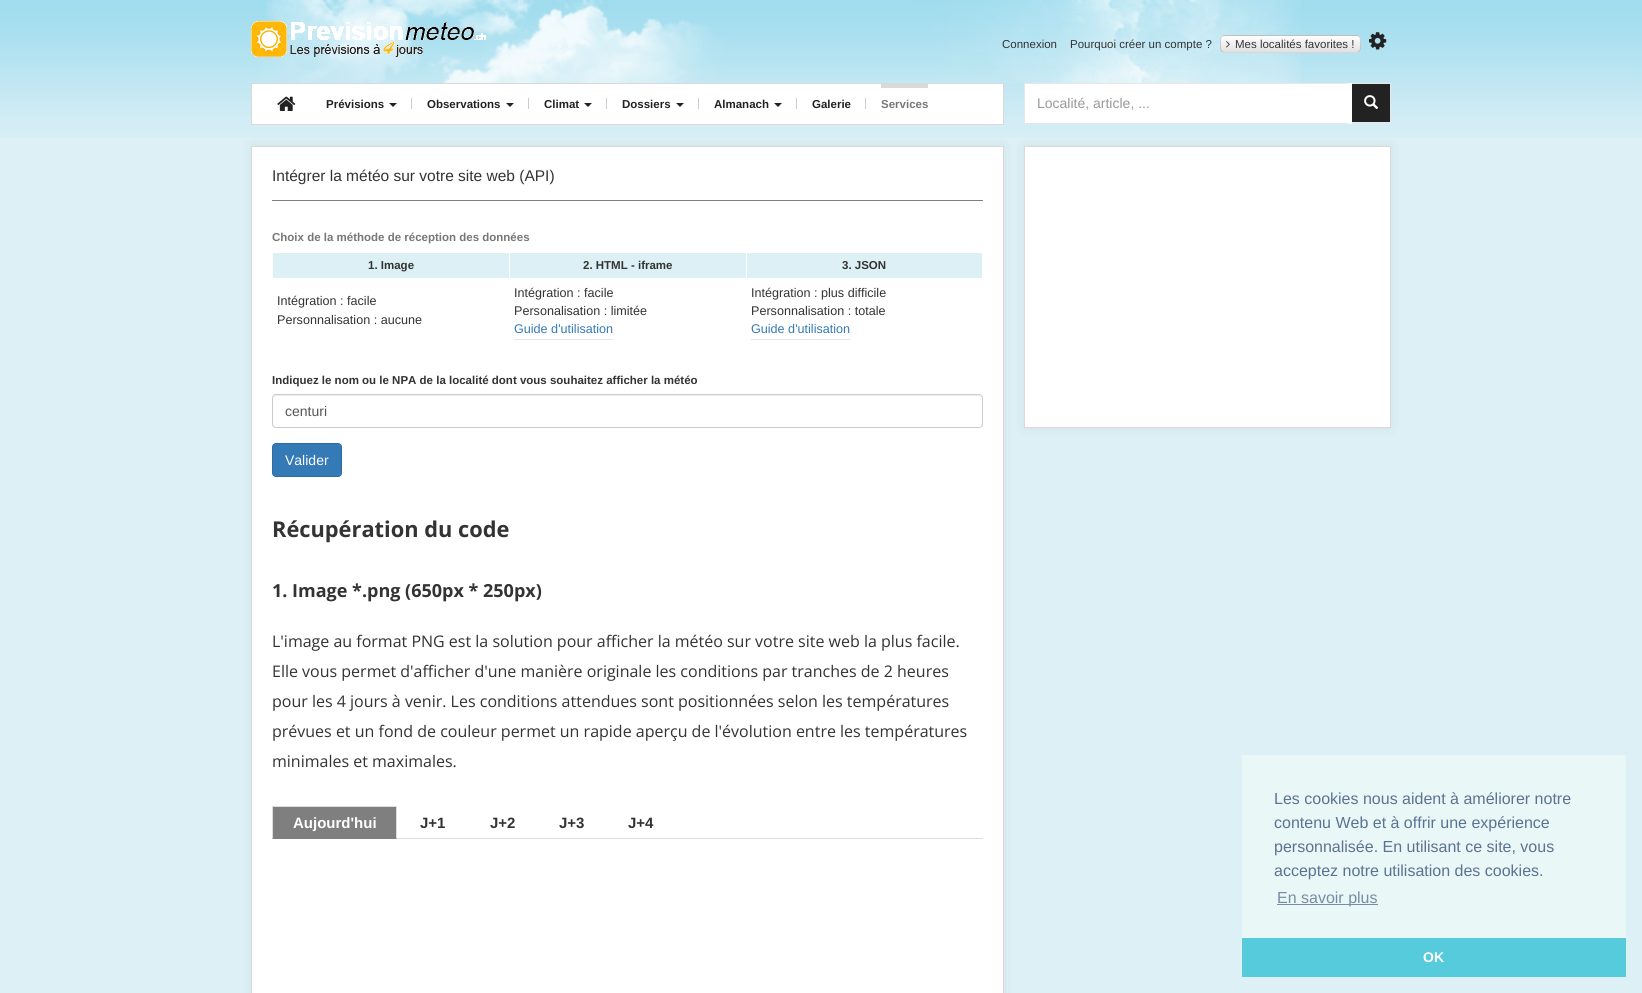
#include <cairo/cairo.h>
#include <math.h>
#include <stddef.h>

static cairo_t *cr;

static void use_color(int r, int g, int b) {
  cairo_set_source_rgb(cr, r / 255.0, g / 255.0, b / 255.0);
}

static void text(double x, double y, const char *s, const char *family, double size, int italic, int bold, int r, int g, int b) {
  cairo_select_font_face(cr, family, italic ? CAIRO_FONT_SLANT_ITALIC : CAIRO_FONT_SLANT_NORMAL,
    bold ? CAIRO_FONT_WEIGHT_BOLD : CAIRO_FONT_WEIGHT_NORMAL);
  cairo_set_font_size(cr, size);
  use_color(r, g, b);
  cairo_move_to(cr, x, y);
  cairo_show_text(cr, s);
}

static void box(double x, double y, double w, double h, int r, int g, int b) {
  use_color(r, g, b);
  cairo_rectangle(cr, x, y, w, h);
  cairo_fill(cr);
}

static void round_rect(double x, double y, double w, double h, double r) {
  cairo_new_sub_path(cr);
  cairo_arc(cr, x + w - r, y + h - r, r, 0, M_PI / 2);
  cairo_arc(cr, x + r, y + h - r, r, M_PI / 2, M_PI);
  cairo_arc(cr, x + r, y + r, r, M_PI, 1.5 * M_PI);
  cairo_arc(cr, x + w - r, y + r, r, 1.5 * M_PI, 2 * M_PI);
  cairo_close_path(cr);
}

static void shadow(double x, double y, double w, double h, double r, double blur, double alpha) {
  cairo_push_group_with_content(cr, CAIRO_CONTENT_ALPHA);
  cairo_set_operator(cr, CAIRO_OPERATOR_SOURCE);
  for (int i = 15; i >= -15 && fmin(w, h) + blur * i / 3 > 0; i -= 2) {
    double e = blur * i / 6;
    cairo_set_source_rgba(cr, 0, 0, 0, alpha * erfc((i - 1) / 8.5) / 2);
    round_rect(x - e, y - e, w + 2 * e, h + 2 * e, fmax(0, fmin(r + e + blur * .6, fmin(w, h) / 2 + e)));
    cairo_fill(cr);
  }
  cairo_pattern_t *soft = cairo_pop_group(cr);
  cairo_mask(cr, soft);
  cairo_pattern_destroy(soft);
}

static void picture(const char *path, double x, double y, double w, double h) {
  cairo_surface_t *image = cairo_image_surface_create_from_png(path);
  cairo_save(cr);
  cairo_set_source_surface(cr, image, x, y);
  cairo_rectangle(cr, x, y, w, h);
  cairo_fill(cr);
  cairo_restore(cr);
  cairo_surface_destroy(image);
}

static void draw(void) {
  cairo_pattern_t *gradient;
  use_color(220, 240, 246);
  cairo_paint(cr);
  picture("img_01.png", 0, 0, 1642, 138);
  picture("img_02.png", 261, 0, 1040, 83);
  picture("img_03.png", 251, 21, 235, 36);
  cairo_save(cr);
  round_rect(1220, 35, 141, 18, 5);
  cairo_clip(cr);
  gradient = cairo_pattern_create_linear(1291, 20, 1291, 36);
  cairo_pattern_add_color_stop_rgba(gradient, 0, 1, 1, 1, 1);
  cairo_pattern_add_color_stop_rgba(gradient, 1, 0.878, 0.878, 0.878, 1);
  cairo_set_source(cr, gradient);
  cairo_pattern_destroy(gradient);
  cairo_rectangle(cr, 1220, 35, 141, 1);
  cairo_fill(cr);
  gradient = cairo_pattern_create_linear(1291, 36, 1291, 52);
  cairo_pattern_add_color_stop_rgba(gradient, 0, 1, 1, 1, 1);
  cairo_pattern_add_color_stop_rgba(gradient, 1, 0.878, 0.878, 0.878, 1);
  cairo_set_source(cr, gradient);
  cairo_pattern_destroy(gradient);
  cairo_rectangle(cr, 1220, 36, 141, 16);
  cairo_fill(cr);
  gradient = cairo_pattern_create_linear(1291, 52, 1291, 68);
  cairo_pattern_add_color_stop_rgba(gradient, 0, 1, 1, 1, 1);
  cairo_pattern_add_color_stop_rgba(gradient, 1, 0.878, 0.878, 0.878, 1);
  cairo_set_source(cr, gradient);
  cairo_pattern_destroy(gradient);
  cairo_rectangle(cr, 1220, 52, 141, 1);
  cairo_fill(cr);
  cairo_restore(cr);
  round_rect(1220.5, 35.5, 140, 17, 4.5);
  cairo_set_source_rgba(cr, 0, 0, 0, 0.15);
  cairo_set_line_width(cr, 1);
  cairo_stroke(cr);
  picture("img_04.png", 1226, 41, 4, 7);
  picture("img_05.png", 1369, 32, 18, 18);
  use_color(255, 255, 255);
  cairo_rectangle(cr, 251.5, 83.5, 752, 41);
  cairo_fill_preserve(cr);
  use_color(217, 217, 217);
  cairo_stroke(cr);
  picture("img_06.png", 277, 96, 19, 15);
  box(411, 98, 1, 11, 204, 204, 204);
  use_color(34, 34, 34);
  cairo_new_path(cr);
  cairo_move_to(cr, 389, 103);
  cairo_line_to(cr, 397, 103);
  cairo_line_to(cr, 393, 107);
  cairo_close_path(cr);
  cairo_fill(cr);
  box(528, 98, 1, 11, 204, 204, 204);
  use_color(34, 34, 34);
  cairo_new_path(cr);
  cairo_move_to(cr, 506, 103);
  cairo_line_to(cr, 514, 103);
  cairo_line_to(cr, 510, 107);
  cairo_close_path(cr);
  cairo_fill(cr);
  box(606, 98, 1, 11, 204, 204, 204);
  use_color(34, 34, 34);
  cairo_new_path(cr);
  cairo_move_to(cr, 584, 103);
  cairo_line_to(cr, 592, 103);
  cairo_line_to(cr, 588, 107);
  cairo_close_path(cr);
  cairo_fill(cr);
  box(698, 98, 1, 11, 204, 204, 204);
  use_color(34, 34, 34);
  cairo_new_path(cr);
  cairo_move_to(cr, 676, 103);
  cairo_line_to(cr, 684, 103);
  cairo_line_to(cr, 680, 107);
  cairo_close_path(cr);
  cairo_fill(cr);
  box(796, 98, 1, 11, 204, 204, 204);
  use_color(34, 34, 34);
  cairo_new_path(cr);
  cairo_move_to(cr, 774, 103);
  cairo_line_to(cr, 782, 103);
  cairo_line_to(cr, 778, 107);
  cairo_close_path(cr);
  cairo_fill(cr);
  box(865, 98, 1, 11, 204, 204, 204);
  box(881, 84, 47, 4, 217, 217, 217);
  box(1025, 84, 317, 39, 255, 255, 255);
  use_color(34, 34, 34);
  cairo_rectangle(cr, 1351.5, 83.5, 39, 39);
  cairo_fill_preserve(cr);
  use_color(231, 231, 231);
  cairo_stroke(cr);
  cairo_new_path(cr);
  cairo_move_to(cr, 1024, 83);
  cairo_line_to(cr, 1352, 83);
  cairo_line_to(cr, 1342, 84);
  cairo_line_to(cr, 1025, 84);
  cairo_close_path(cr);
  cairo_fill(cr);
  use_color(255, 255, 255);
  cairo_new_path(cr);
  cairo_move_to(cr, 1352, 83);
  cairo_line_to(cr, 1352, 124);
  cairo_line_to(cr, 1342, 123);
  cairo_line_to(cr, 1342, 84);
  cairo_close_path(cr);
  cairo_fill(cr);
  use_color(231, 231, 231);
  cairo_new_path(cr);
  cairo_move_to(cr, 1352, 124);
  cairo_line_to(cr, 1024, 124);
  cairo_line_to(cr, 1025, 123);
  cairo_line_to(cr, 1342, 123);
  cairo_close_path(cr);
  cairo_fill(cr);
  box(1024, 83, 1, 41, 231, 231, 231);
  picture("img_07.png", 1364, 95, 15, 14);
  use_color(0, 0, 0);
  shadow(250, 145, 755, 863, 0, 5, 0.05);
  use_color(255, 255, 255);
  cairo_rectangle(cr, 251.5, 146.5, 752, 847);
  cairo_fill_preserve(cr);
  use_color(217, 217, 217);
  cairo_stroke(cr);
  box(272, 200, 711, 1, 127, 127, 127);
  box(273, 253, 236, 25, 220, 240, 246);
  box(510, 253, 236, 25, 220, 240, 246);
  box(747, 253, 235, 25, 220, 240, 246);
  box(514, 339, 99, 1, 230, 230, 230);
  box(751, 339, 99, 1, 230, 230, 230);
  use_color(236, 236, 236);
  cairo_new_path(cr);
  cairo_move_to(cr, 276, 396);
  cairo_line_to(cr, 979, 396);
  cairo_curve_to(cr, 981, 396, 982, 397, 982, 399);
  cairo_curve_to(cr, 982, 397, 981, 395, 979, 395);
  cairo_line_to(cr, 276, 395);
  cairo_curve_to(cr, 274, 395, 273, 397, 273, 399);
  cairo_curve_to(cr, 273, 397, 274, 396, 276, 396);
  cairo_close_path(cr);
  cairo_fill(cr);
  round_rect(272.5, 394.5, 710, 33, 3.5);
  use_color(204, 204, 204);
  cairo_stroke(cr);
  use_color(51, 122, 183);
  round_rect(272.5, 443.5, 69, 33, 3.5);
  cairo_fill_preserve(cr);
  use_color(46, 109, 164);
  cairo_stroke(cr);
  box(397, 838, 586, 1, 221, 221, 221);
  box(272, 807, 125, 32, 127, 127, 127);
  box(272, 806, 125, 1, 221, 221, 221);
  cairo_new_path(cr);
  cairo_move_to(cr, 397, 806);
  cairo_line_to(cr, 397, 839);
  cairo_line_to(cr, 396, 838);
  cairo_line_to(cr, 396, 807);
  cairo_close_path(cr);
  cairo_fill(cr);
  cairo_new_path(cr);
  cairo_move_to(cr, 272, 839);
  cairo_line_to(cr, 272, 806);
  cairo_line_to(cr, 273, 807);
  cairo_line_to(cr, 273, 838);
  cairo_close_path(cr);
  cairo_fill(cr);
  use_color(0, 0, 0);
  shadow(1023, 145, 369, 284, 0, 5, 0.05);
  use_color(255, 255, 255);
  cairo_rectangle(cr, 1024.5, 146.5, 366, 281);
  cairo_fill_preserve(cr);
  use_color(217, 217, 217);
  cairo_stroke(cr);
  box(1242, 755, 384, 183, 234, 247, 247);
  box(1277, 904, 101, 1, 120, 141, 165);
  box(1242, 938, 384, 39, 86, 203, 219);
  text(1002, 48, "Connexion", "Liberation Sans", 11.5, 0, 0, 51, 51, 51);
  text(1070, 48, "Pourquoi créer un compte ?", "Liberation Sans", 11.5, 0, 0, 51, 51, 51);
  text(1235, 48, "Mes localités favorites !", "Liberation Sans", 11.5, 0, 0, 51, 51, 51);
  text(326, 108, "Prévisions", "Liberation Sans", 11.5, 0, 1, 34, 34, 34);
  text(427, 108, "Observations", "Liberation Sans", 11.5, 0, 1, 34, 34, 34);
  text(544, 108, "Climat", "Liberation Sans", 11.5, 0, 1, 34, 34, 34);
  text(622, 108, "Dossiers", "Liberation Sans", 11.5, 0, 1, 34, 34, 34);
  text(714, 108, "Almanach", "Liberation Sans", 11.5, 0, 1, 34, 34, 34);
  text(812, 108, "Galerie", "Liberation Sans", 11.5, 0, 1, 34, 34, 34);
  text(881, 108, "Services", "Liberation Sans", 11.5, 0, 1, 119, 119, 119);
  text(1037, 108, "Localité, article, ...", "Liberation Sans", 14, 0, 0, 153, 153, 153);
  text(272, 181, "Intégrer la météo sur votre site web (API)", "Liberation Sans", 15.5, 0, 0, 51, 51, 51);
  text(272, 241, "Choix de la méthode de réception des données", "Liberation Sans", 11.5, 0, 1, 119, 119, 119);
  text(368, 269, "1. Image", "Liberation Sans", 11.5, 0, 1, 51, 51, 51);
  text(583, 269, "2. HTML - iframe", "Liberation Sans", 11.5, 0, 1, 51, 51, 51);
  text(842, 269, "3. JSON", "Liberation Sans", 11.5, 0, 1, 51, 51, 51);
  text(277, 305, "Intégration : facile", "Liberation Sans", 12.6, 0, 0, 51, 51, 51);
  text(277, 324, "Personnalisation : aucune", "Liberation Sans", 12.6, 0, 0, 51, 51, 51);
  text(514, 297, "Intégration : facile", "Liberation Sans", 12.6, 0, 0, 51, 51, 51);
  text(514, 315, "Personalisation : limitée", "Liberation Sans", 12.6, 0, 0, 51, 51, 51);
  text(514, 333, "Guide d'utilisation", "Liberation Sans", 12.6, 0, 0, 51, 122, 183);
  text(751, 297, "Intégration : plus difficile", "Liberation Sans", 12.6, 0, 0, 51, 51, 51);
  text(751, 315, "Personnalisation : totale", "Liberation Sans", 12.6, 0, 0, 51, 51, 51);
  text(751, 333, "Guide d'utilisation", "Liberation Sans", 12.6, 0, 0, 51, 122, 183);
  text(272, 384, "Indiquez le nom ou le NPA de la localité dont vous souhaitez afficher la météo", "Liberation Sans", 11.5, 0, 1, 51, 51, 51);
  text(285, 416, "centuri", "Liberation Sans", 14, 0, 0, 85, 85, 85);
  text(285, 465, "Valider", "Liberation Sans", 14, 0, 0, 255, 255, 255);
  text(272, 537, "Récupération du code", "Open Sans", 21.8, 0, 1, 51, 51, 51);
  text(272, 597, "1. Image *.png (650px * 250px)", "Open Sans", 18, 0, 1, 51, 51, 51);
  text(272, 647, "L'image au format PNG est la solution pour afficher la météo sur votre site web la plus facile.", "Open Sans", 16, 0, 0, 51, 51, 51);
  text(272, 677, "Elle vous permet d'afficher d'une manière originale les conditions par tranches de 2 heures", "Open Sans", 16, 0, 0, 51, 51, 51);
  text(272, 707, "pour les 4 jours à venir. Les conditions attendues sont positionnées selon les températures", "Open Sans", 16, 0, 0, 51, 51, 51);
  text(272, 737, "prévues et un fond de couleur permet un rapide aperçu de l'évolution entre les températures", "Open Sans", 16, 0, 0, 51, 51, 51);
  text(272, 767, "minimales et maximales.", "Open Sans", 16, 0, 0, 51, 51, 51);
  text(293, 828, "Aujourd'hui", "Liberation Sans", 15, 0, 1, 255, 255, 255);
  text(420, 828, "J+1", "Liberation Sans", 15, 0, 1, 51, 51, 51);
  text(490, 828, "J+2", "Liberation Sans", 15, 0, 1, 51, 51, 51);
  text(559, 828, "J+3", "Liberation Sans", 15, 0, 1, 51, 51, 51);
  text(628, 828, "J+4", "Liberation Sans", 15, 0, 1, 51, 51, 51);
  text(1274, 804, "Les cookies nous aident à améliorer notre", "Liberation Sans", 16, 0, 0, 92, 114, 145);
  text(1274, 828, "contenu Web et à offrir une expérience", "Liberation Sans", 16, 0, 0, 92, 114, 145);
  text(1274, 852, "personnalisée. En utilisant ce site, vous", "Liberation Sans", 16, 0, 0, 92, 114, 145);
  text(1274, 876, "acceptez notre utilisation des cookies.", "Liberation Sans", 16, 0, 0, 92, 114, 145);
  text(1277, 903, "En savoir plus", "Liberation Sans", 16, 0, 0, 120, 141, 165);
  text(1423, 962, "OK", "Liberation Sans", 14, 0, 1, 255, 255, 255);
}

int main(void) {
  cairo_surface_t *surface = cairo_image_surface_create(CAIRO_FORMAT_RGB24, 1642, 993);
  cr = cairo_create(surface);
  cairo_font_options_t *options = cairo_font_options_create();
  cairo_font_options_set_hint_metrics(options, CAIRO_HINT_METRICS_OFF);
  cairo_font_options_set_hint_style(options, CAIRO_HINT_STYLE_NONE);
  cairo_set_font_options(cr, options);
  cairo_set_miter_limit(cr, 4);
  draw();
  cairo_surface_write_to_png(surface, "out.png");
  cairo_font_options_destroy(options);
  cairo_destroy(cr);
  cairo_surface_destroy(surface);
  return 0;
}
